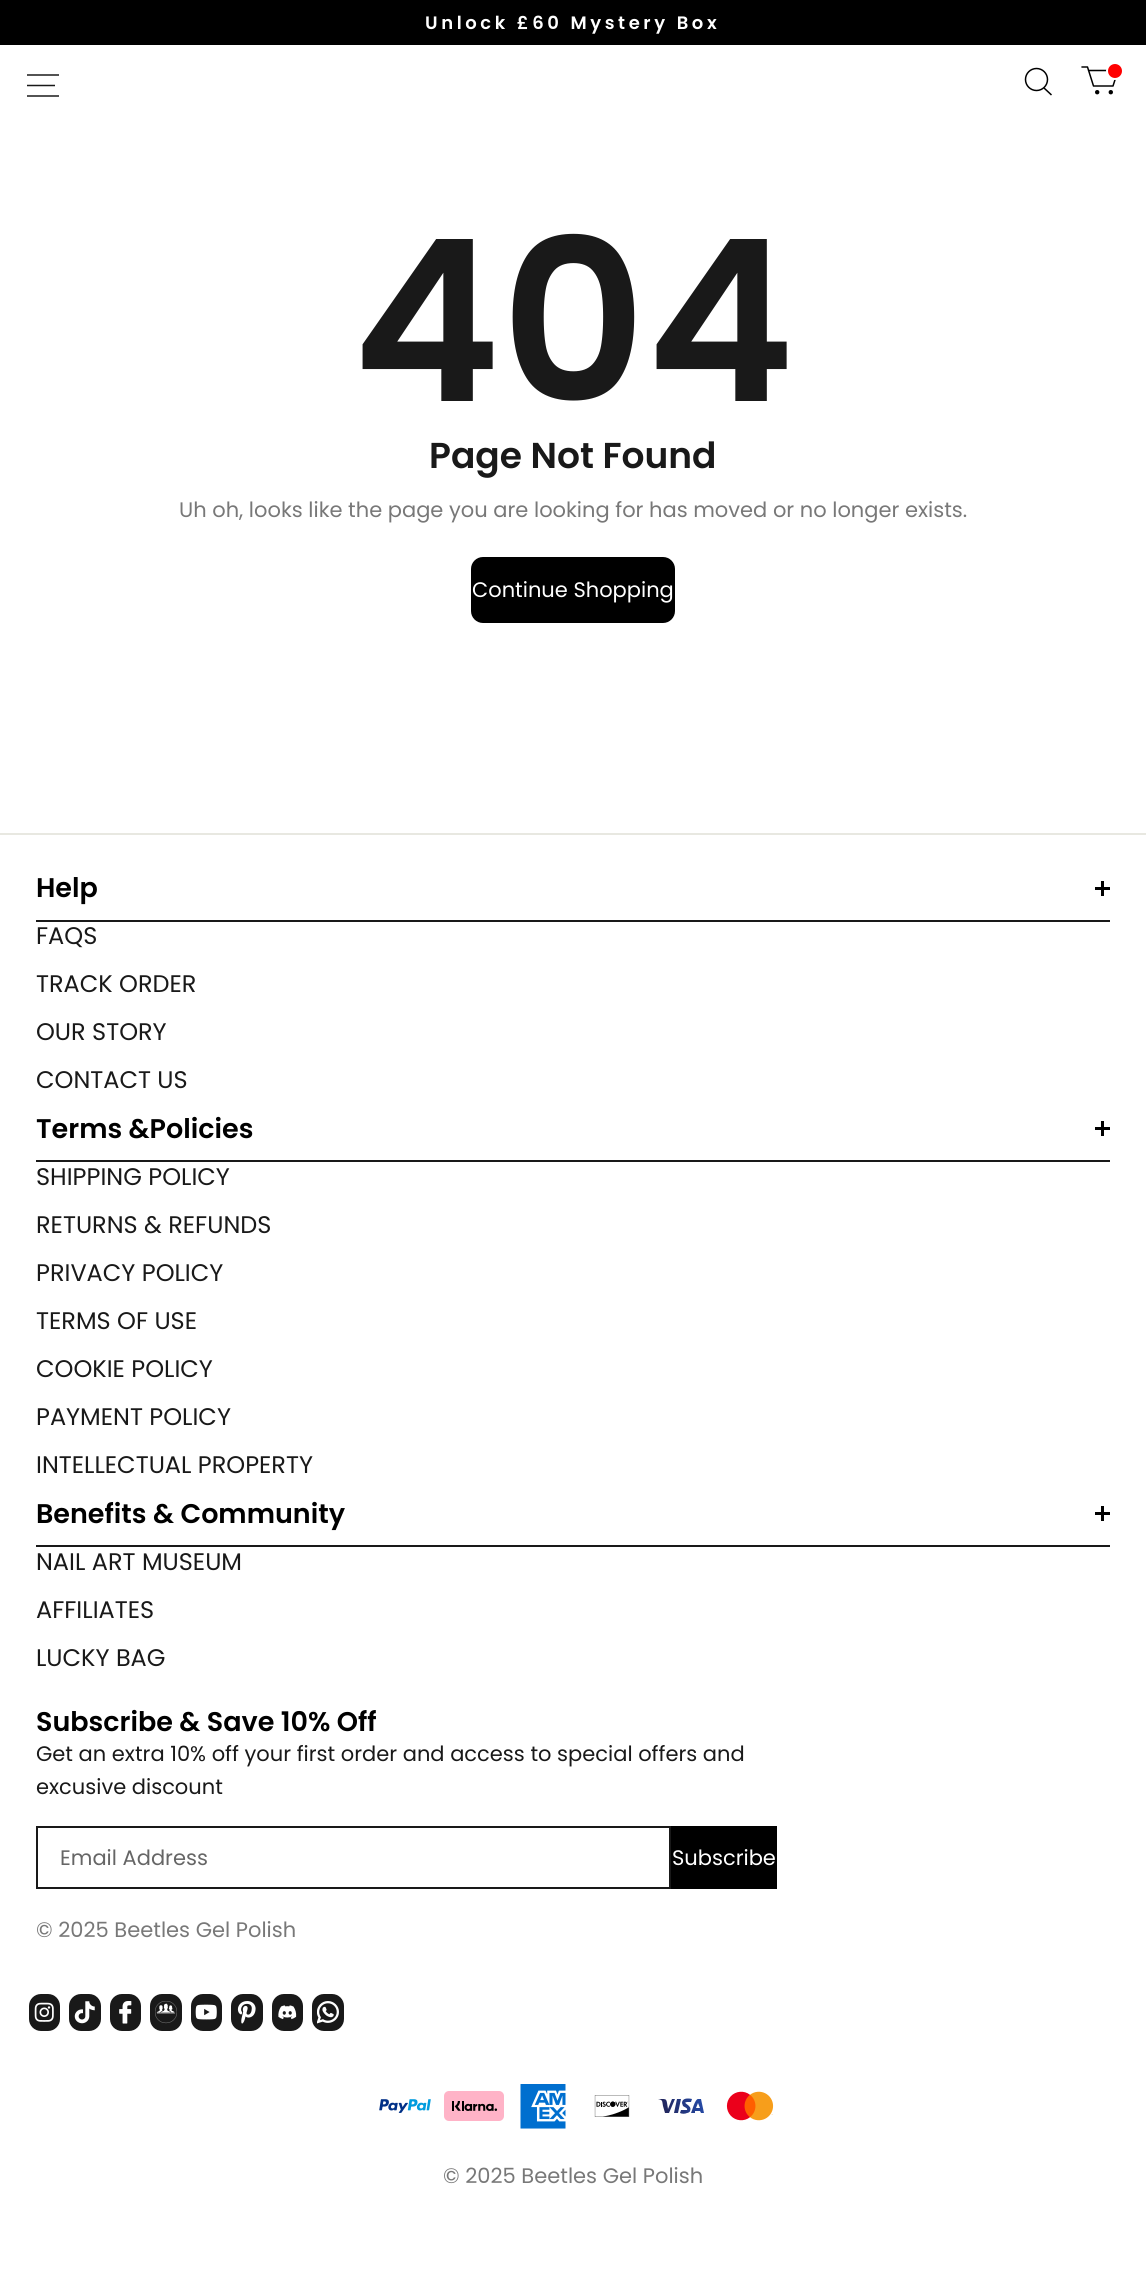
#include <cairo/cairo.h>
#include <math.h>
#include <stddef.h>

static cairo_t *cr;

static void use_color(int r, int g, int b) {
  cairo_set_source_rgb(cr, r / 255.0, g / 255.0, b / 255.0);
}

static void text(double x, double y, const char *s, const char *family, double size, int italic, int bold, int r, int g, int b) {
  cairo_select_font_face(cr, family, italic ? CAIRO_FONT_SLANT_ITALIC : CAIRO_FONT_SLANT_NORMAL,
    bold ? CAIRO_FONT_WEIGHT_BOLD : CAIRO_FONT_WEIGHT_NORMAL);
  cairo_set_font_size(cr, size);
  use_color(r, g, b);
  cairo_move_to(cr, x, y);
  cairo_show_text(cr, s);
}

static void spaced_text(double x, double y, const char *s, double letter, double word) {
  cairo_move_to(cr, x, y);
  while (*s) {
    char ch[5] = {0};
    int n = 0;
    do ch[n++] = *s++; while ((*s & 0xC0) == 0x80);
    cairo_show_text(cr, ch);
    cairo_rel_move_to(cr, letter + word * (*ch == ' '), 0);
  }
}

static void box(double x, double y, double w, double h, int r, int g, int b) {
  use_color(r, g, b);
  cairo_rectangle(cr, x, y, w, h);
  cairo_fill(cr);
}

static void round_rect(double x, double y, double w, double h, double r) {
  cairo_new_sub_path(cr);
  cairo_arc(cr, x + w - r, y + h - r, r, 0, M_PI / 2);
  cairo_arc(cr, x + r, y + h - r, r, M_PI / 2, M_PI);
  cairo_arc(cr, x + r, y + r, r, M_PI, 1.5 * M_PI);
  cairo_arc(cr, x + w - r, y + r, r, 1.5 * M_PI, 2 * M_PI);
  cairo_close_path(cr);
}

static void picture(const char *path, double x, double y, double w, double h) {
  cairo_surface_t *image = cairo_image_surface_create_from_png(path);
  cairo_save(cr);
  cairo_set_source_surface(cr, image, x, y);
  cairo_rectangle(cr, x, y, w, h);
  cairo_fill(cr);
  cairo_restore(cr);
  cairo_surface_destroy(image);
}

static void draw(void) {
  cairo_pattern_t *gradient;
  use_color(255, 255, 255);
  cairo_paint(cr);
  box(0, 0, 1146, 45, 0, 0, 0);
  box(27, 74, 32, 2, 83, 83, 83);
  cairo_new_path(cr);
  cairo_move_to(cr, 27, 85.5);
  cairo_line_to(cr, 55, 85.5);
  use_color(25, 25, 25);
  cairo_set_line_width(cr, 1.5);
  cairo_stroke(cr);
  box(27, 95, 32, 2, 83, 83, 83);
  cairo_arc(cr, 1036.5, 79.5, 11, 0, 2 * M_PI);
  use_color(0, 0, 0);
  cairo_stroke(cr);
  cairo_new_path(cr);
  cairo_move_to(cr, 1044, 88);
  cairo_line_to(cr, 1051.5, 95);
  cairo_stroke(cr);
  cairo_new_path(cr);
  cairo_move_to(cr, 1082, 67);
  cairo_line_to(cr, 1087.5, 67);
  cairo_line_to(cr, 1093.5, 86);
  cairo_line_to(cr, 1113, 86);
  cairo_line_to(cr, 1118, 70.5);
  cairo_line_to(cr, 1088.5, 70.5);
  cairo_set_line_cap(cr, CAIRO_LINE_CAP_ROUND);
  cairo_set_line_join(cr, CAIRO_LINE_JOIN_ROUND);
  cairo_stroke(cr);
  use_color(255, 0, 0);
  cairo_arc(cr, 1115, 71, 8, 0, 2 * M_PI);
  cairo_fill_preserve(cr);
  use_color(255, 255, 255);
  cairo_set_line_width(cr, 2);
  cairo_set_line_cap(cr, CAIRO_LINE_CAP_BUTT);
  cairo_set_line_join(cr, CAIRO_LINE_JOIN_MITER);
  cairo_stroke(cr);
  use_color(0, 0, 0);
  cairo_arc(cr, 1097.2, 92.2, 2.2, 0, 2 * M_PI);
  cairo_fill(cr);
  cairo_arc(cr, 1110.8, 92.2, 2.2, 0, 2 * M_PI);
  cairo_fill(cr);
  round_rect(471, 557, 204, 66, 12);
  cairo_fill(cr);
  box(0, 833, 1146, 2, 232, 232, 225);
  box(36, 920, 1074, 2, 25, 25, 25);
  box(1101, 881, 3, 15, 0, 0, 0);
  box(1095, 887, 15, 3, 0, 0, 0);
  box(36, 1160, 1074, 2, 25, 25, 25);
  box(1101, 1121, 3, 15, 0, 0, 0);
  box(1095, 1127, 15, 3, 0, 0, 0);
  box(36, 1545, 1074, 2, 25, 25, 25);
  box(1101, 1506, 3, 15, 0, 0, 0);
  box(1095, 1512, 15, 3, 0, 0, 0);
  cairo_rectangle(cr, 37, 1827, 633, 61);
  use_color(25, 25, 25);
  cairo_stroke(cr);
  box(671, 1826, 106, 63, 0, 0, 0);
  use_color(25, 25, 25);
  round_rect(29, 1994, 31, 37, 12);
  cairo_fill(cr);
  picture("img_01.png", 34, 2002, 20, 20);
  round_rect(69, 1994, 32, 37, 12);
  cairo_fill(cr);
  picture("img_02.png", 74, 2001, 21, 23);
  round_rect(110, 1994, 31, 37, 12);
  cairo_fill(cr);
  picture("img_03.png", 119, 2001, 13, 23);
  round_rect(150, 1994, 32, 37, 12);
  cairo_fill(cr);
  picture("img_04.png", 155, 2001, 22, 23);
  round_rect(191, 1994, 31, 37, 12);
  cairo_fill(cr);
  picture("img_05.png", 195, 2004, 22, 16);
  round_rect(231, 1994, 32, 37, 12);
  cairo_fill(cr);
  picture("img_06.png", 237, 2001, 19, 23);
  round_rect(272, 1994, 31, 37, 12);
  cairo_fill(cr);
  picture("img_07.png", 278, 2005, 19, 15);
  round_rect(312, 1994, 32, 37, 12);
  cairo_fill(cr);
  picture("img_08.png", 317, 2001, 22, 23);
  picture("img_09.png", 379, 2099, 52, 14);
  picture("img_10.png", 444, 2091, 60, 30);
  picture("img_11.png", 520, 2084, 46, 45);
  picture("img_12.png", 594, 2095, 36, 22);
  gradient = cairo_pattern_create_linear(662, 2113, 701, 2099);
  cairo_pattern_add_color_stop_rgba(gradient, 0, 0.133, 0.137, 0.341, 1);
  cairo_pattern_add_color_stop_rgba(gradient, 1, 0.145, 0.29, 0.647, 1);
  cairo_set_source(cr, gradient);
  cairo_pattern_destroy(gradient);
  cairo_set_fill_rule(cr, CAIRO_FILL_RULE_EVEN_ODD);
  cairo_new_path(cr);
  cairo_move_to(cr, 682, 2103);
  cairo_curve_to(cr, 682, 2098, 688, 2098, 692, 2099);
  cairo_line_to(cr, 691, 2102);
  cairo_line_to(cr, 687, 2102);
  cairo_curve_to(cr, 681, 2103, 693, 2105, 690, 2111);
  cairo_curve_to(cr, 690, 2112, 688, 2113, 687, 2113);
  cairo_curve_to(cr, 685, 2114, 682, 2114, 680, 2113);
  cairo_line_to(cr, 681, 2110);
  cairo_line_to(cr, 684, 2110);
  cairo_line_to(cr, 687, 2110);
  cairo_curve_to(cr, 688, 2108, 684, 2107, 683, 2106);
  cairo_close_path(cr);
  cairo_move_to(cr, 672, 2099);
  cairo_line_to(cr, 675, 2099);
  cairo_line_to(cr, 669, 2113);
  cairo_line_to(cr, 665, 2113);
  cairo_line_to(cr, 663, 2106);
  cairo_curve_to(cr, 662, 2101, 663, 2100, 658, 2099);
  cairo_curve_to(cr, 668, 2099, 666, 2098, 668, 2109);
  cairo_close_path(cr);
  cairo_move_to(cr, 677, 2099);
  cairo_line_to(cr, 681, 2099);
  cairo_line_to(cr, 678, 2113);
  cairo_line_to(cr, 674, 2113);
  cairo_close_path(cr);
  cairo_move_to(cr, 698, 2099);
  cairo_line_to(cr, 701, 2099);
  cairo_line_to(cr, 704, 2113);
  cairo_line_to(cr, 701, 2113);
  cairo_line_to(cr, 700, 2111);
  cairo_line_to(cr, 695, 2111);
  cairo_line_to(cr, 695, 2113);
  cairo_line_to(cr, 691, 2113);
  cairo_curve_to(cr, 692, 2111, 695, 2099, 698, 2099);
  cairo_close_path(cr);
  cairo_move_to(cr, 698, 2103);
  cairo_line_to(cr, 696, 2108);
  cairo_line_to(cr, 700, 2108);
  cairo_close_path(cr);
  cairo_fill(cr);
  picture("img_13.png", 726, 2091, 48, 30);
  cairo_select_font_face(cr, "Poppins SemiBold", CAIRO_FONT_SLANT_NORMAL, CAIRO_FONT_WEIGHT_NORMAL);
  cairo_set_font_size(cr, 18);
  use_color(255, 255, 255);
  spaced_text(425, 29, "Unlock £60 Mystery Box", 3.6, 0);
  text(352, 401, "404", "Poppins SemiBold", 225, 0, 0, 25, 25, 25);
  text(429, 468, "Page Not Found", "Poppins SemiBold", 36, 0, 0, 25, 25, 25);
  text(179, 517, "Uh oh, looks like the page you are looking for has moved or no longer exists.", "Poppins", 21, 0, 0, 120, 120, 120);
  text(472, 597, "Continue Shopping", "Poppins", 21, 0, 0, 255, 255, 255);
  text(36, 897, "Help", "Poppins SemiBold", 27, 0, 0, 0, 0, 0);
  text(36, 944, "FAQS", "Poppins", 24, 0, 0, 25, 25, 25);
  text(36, 992, "TRACK ORDER", "Poppins", 24, 0, 0, 25, 25, 25);
  text(36, 1040, "OUR STORY", "Poppins", 24, 0, 0, 25, 25, 25);
  text(36, 1088, "CONTACT US", "Poppins", 24, 0, 0, 25, 25, 25);
  text(36, 1138, "Terms &Policies", "Poppins SemiBold", 27, 0, 0, 0, 0, 0);
  text(36, 1185, "SHIPPING POLICY", "Poppins", 24, 0, 0, 25, 25, 25);
  text(36, 1233, "RETURNS & REFUNDS", "Poppins", 24, 0, 0, 25, 25, 25);
  text(36, 1281, "PRIVACY POLICY", "Poppins", 24, 0, 0, 25, 25, 25);
  text(36, 1329, "TERMS OF USE", "Poppins", 24, 0, 0, 25, 25, 25);
  text(36, 1377, "COOKIE POLICY", "Poppins", 24, 0, 0, 25, 25, 25);
  text(36, 1425, "PAYMENT POLICY", "Poppins", 24, 0, 0, 25, 25, 25);
  text(36, 1473, "INTELLECTUAL PROPERTY", "Poppins", 24, 0, 0, 25, 25, 25);
  text(36, 1523, "Benefits & Community", "Poppins SemiBold", 27, 0, 0, 0, 0, 0);
  text(36, 1570, "NAIL ART MUSEUM", "Poppins", 24, 0, 0, 25, 25, 25);
  text(36, 1618, "AFFILIATES", "Poppins", 24, 0, 0, 25, 25, 25);
  text(36, 1666, "LUCKY BAG", "Poppins", 24, 0, 0, 25, 25, 25);
  text(36, 1731, "Subscribe & Save 10% Off", "Poppins SemiBold", 27, 0, 0, 0, 0, 0);
  text(36, 1761, "Get an extra 10% off your first order and access to special offers and", "Poppins", 21, 0, 0, 25, 25, 25);
  text(36, 1794, "excusive discount", "Poppins", 21, 0, 0, 25, 25, 25);
  text(60, 1865, "Email Address", "Poppins", 21, 0, 0, 102, 102, 102);
  text(672, 1865, "Subscribe", "Poppins", 21, 0, 0, 255, 255, 255);
  text(36, 1937, "© 2025 Beetles Gel Polish", "Poppins", 21, 0, 0, 120, 120, 120);
  text(443, 2183, "© 2025 Beetles Gel Polish", "Poppins", 21, 0, 0, 120, 120, 120);
}

int main(void) {
  cairo_surface_t *surface = cairo_image_surface_create(CAIRO_FORMAT_RGB24, 1146, 2289);
  cr = cairo_create(surface);
  cairo_font_options_t *options = cairo_font_options_create();
  cairo_font_options_set_hint_metrics(options, CAIRO_HINT_METRICS_OFF);
  cairo_font_options_set_hint_style(options, CAIRO_HINT_STYLE_NONE);
  cairo_set_font_options(cr, options);
  cairo_set_miter_limit(cr, 4);
  draw();
  cairo_surface_write_to_png(surface, "out.png");
  cairo_font_options_destroy(options);
  cairo_destroy(cr);
  cairo_surface_destroy(surface);
  return 0;
}
